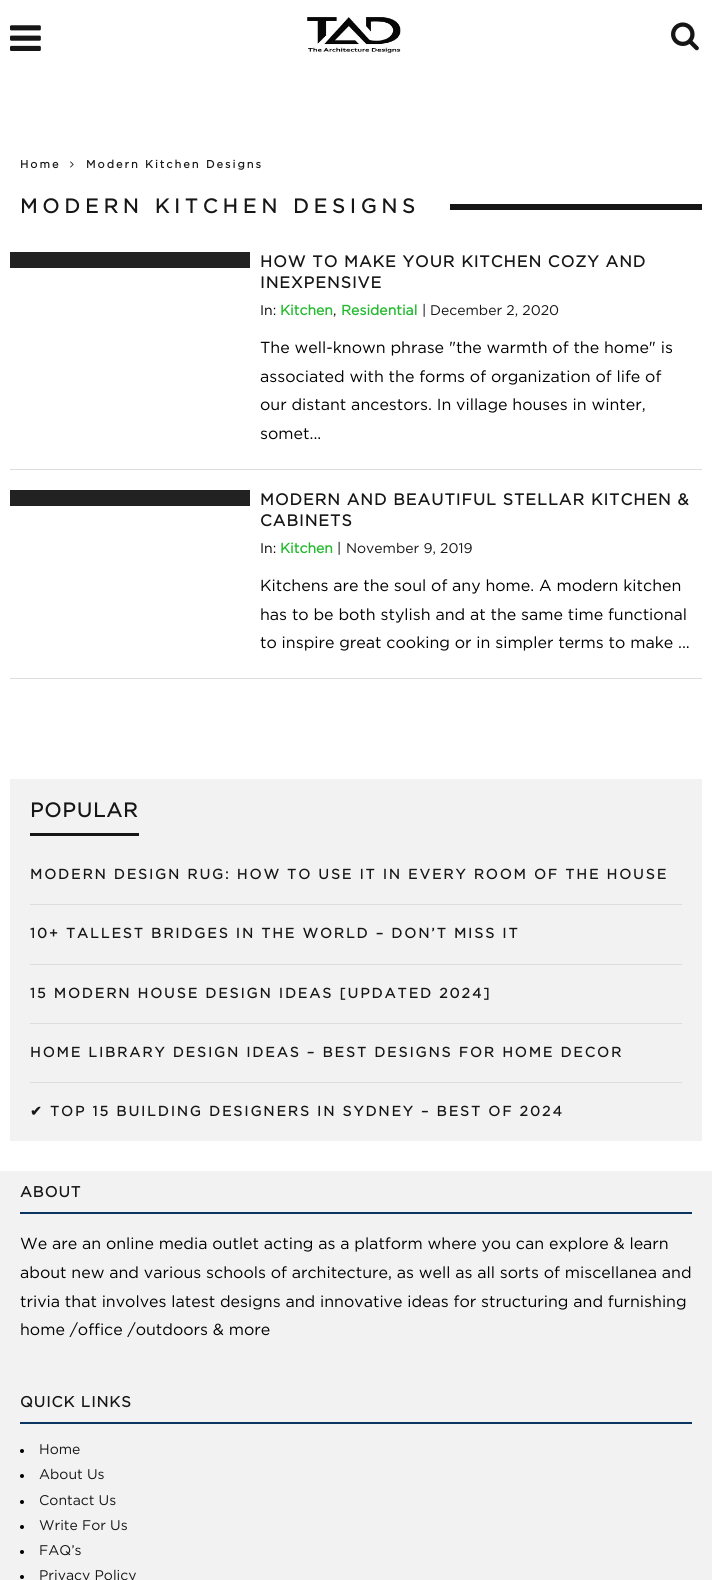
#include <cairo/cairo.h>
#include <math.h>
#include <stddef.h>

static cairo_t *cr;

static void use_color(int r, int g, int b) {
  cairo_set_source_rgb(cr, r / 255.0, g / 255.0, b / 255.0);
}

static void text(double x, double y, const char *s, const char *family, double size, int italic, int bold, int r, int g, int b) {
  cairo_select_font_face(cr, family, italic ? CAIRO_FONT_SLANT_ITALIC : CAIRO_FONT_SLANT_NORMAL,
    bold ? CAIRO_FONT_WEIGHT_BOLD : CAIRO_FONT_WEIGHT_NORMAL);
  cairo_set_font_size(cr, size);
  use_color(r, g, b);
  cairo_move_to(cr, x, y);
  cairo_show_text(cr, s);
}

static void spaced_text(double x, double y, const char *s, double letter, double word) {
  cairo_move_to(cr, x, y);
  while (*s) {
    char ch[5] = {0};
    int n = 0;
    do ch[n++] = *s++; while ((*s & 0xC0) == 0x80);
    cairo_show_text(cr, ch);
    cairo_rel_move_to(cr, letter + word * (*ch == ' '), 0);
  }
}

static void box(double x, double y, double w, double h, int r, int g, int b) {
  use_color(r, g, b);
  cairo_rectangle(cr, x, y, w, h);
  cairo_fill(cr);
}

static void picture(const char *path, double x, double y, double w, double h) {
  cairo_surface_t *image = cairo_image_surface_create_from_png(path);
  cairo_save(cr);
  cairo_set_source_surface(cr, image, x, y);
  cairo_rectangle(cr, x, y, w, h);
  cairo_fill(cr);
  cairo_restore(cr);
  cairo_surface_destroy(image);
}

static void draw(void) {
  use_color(255, 255, 255);
  cairo_paint(cr);
  picture("img_01.png", 10, 25, 31, 26);
  picture("img_02.png", 307, 17, 94, 36);
  picture("img_03.png", 671, 22, 28, 29);
  picture("img_04.png", 70, 161, 4, 7);
  box(450, 204, 252, 6, 22, 22, 22);
  box(10, 469, 692, 1, 221, 221, 221);
  box(10, 252, 240, 16, 34, 34, 34);
  box(10, 678, 692, 1, 221, 221, 221);
  box(10, 490, 240, 16, 34, 34, 34);
  box(10, 779, 692, 362, 242, 242, 242);
  box(30, 833, 109, 3, 22, 22, 22);
  box(30, 904, 652, 1, 221, 221, 221);
  box(30, 964, 652, 1, 221, 221, 221);
  box(30, 1023, 652, 1, 221, 221, 221);
  box(30, 1082, 652, 1, 221, 221, 221);
  box(0, 1171, 712, 409, 242, 242, 242);
  box(20, 1212, 672, 2, 11, 52, 97);
  box(20, 1422, 672, 2, 11, 52, 97);
  use_color(0, 0, 0);
  cairo_arc(cr, 22, 1451, 2, 0, 2 * M_PI);
  cairo_fill(cr);
  cairo_arc(cr, 22, 1476, 2, 0, 2 * M_PI);
  cairo_fill(cr);
  cairo_arc(cr, 22, 1502, 2, 0, 2 * M_PI);
  cairo_fill(cr);
  cairo_arc(cr, 22, 1527, 2, 0, 2 * M_PI);
  cairo_fill(cr);
  cairo_arc(cr, 22, 1552, 2, 0, 2 * M_PI);
  cairo_fill(cr);
  cairo_arc(cr, 22, 1577, 2, 0, 2 * M_PI);
  cairo_fill(cr);
  cairo_select_font_face(cr, "Gotham", CAIRO_FONT_SLANT_NORMAL, CAIRO_FONT_WEIGHT_BOLD);
  cairo_set_font_size(cr, 11);
  use_color(22, 22, 22);
  spaced_text(20, 168, "Home", 2, 0);
  spaced_text(86, 168, "Modern Kitchen Designs", 2, 0);
  cairo_set_font_size(cr, 20);
  spaced_text(20, 213, "MODERN KITCHEN DESIGNS", 5, 0);
  cairo_set_font_size(cr, 16);
  spaced_text(260, 267, "HOW TO MAKE YOUR KITCHEN COZY AND", 1, 0);
  spaced_text(260, 288, "INEXPENSIVE", 1, 0);
  text(260, 315, "In:", "Gotham", 14, 0, 0, 0, 0, 0);
  text(280, 315, "Kitchen", "Gotham", 14, 0, 1, 36, 186, 47);
  text(333, 315, ",", "Gotham", 14, 0, 0, 0, 0, 0);
  text(341, 315, "Residential", "Gotham", 14, 0, 1, 36, 186, 47);
  text(422, 315, "|", "Gotham", 14, 0, 0, 0, 0, 0);
  text(430, 315, "December 2, 2020", "Gotham", 14, 0, 0, 22, 22, 22);
  text(260, 353, "The well-known phrase \"the warmth of the home\" is", "Gotham", 16, 0, 0, 0, 0, 0);
  text(260, 382, "associated with the forms of organization of life of", "Gotham", 16, 0, 0, 0, 0, 0);
  text(260, 410, "our distant ancestors. In village houses in winter,", "Gotham", 16, 0, 0, 0, 0, 0);
  text(260, 439, "somet...", "Gotham", 16, 0, 0, 0, 0, 0);
  cairo_select_font_face(cr, "Gotham", CAIRO_FONT_SLANT_NORMAL, CAIRO_FONT_WEIGHT_BOLD);
  use_color(22, 22, 22);
  spaced_text(260, 505, "MODERN AND BEAUTIFUL STELLAR KITCHEN &", 1, 0);
  spaced_text(260, 526, "CABINETS", 1, 0);
  text(260, 553, "In:", "Gotham", 14, 0, 0, 0, 0, 0);
  text(280, 553, "Kitchen", "Gotham", 14, 0, 1, 36, 186, 47);
  text(337, 553, "|", "Gotham", 14, 0, 0, 0, 0, 0);
  text(346, 553, "November 9, 2019", "Gotham", 14, 0, 0, 22, 22, 22);
  text(260, 591, "Kitchens are the soul of any home. A modern kitchen", "Gotham", 16, 0, 0, 0, 0, 0);
  text(260, 620, "has to be both stylish and at the same time functional", "Gotham", 16, 0, 0, 0, 0, 0);
  text(260, 648, "to inspire great cooking or in simpler terms to make ...", "Gotham", 16, 0, 0, 0, 0, 0);
  cairo_select_font_face(cr, "Gotham", CAIRO_FONT_SLANT_NORMAL, CAIRO_FONT_WEIGHT_BOLD);
  cairo_set_font_size(cr, 20);
  use_color(22, 22, 22);
  spaced_text(30, 817, "POPULAR", 1, 0);
  cairo_set_font_size(cr, 14);
  spaced_text(30, 879, "MODERN DESIGN RUG: HOW TO USE IT IN EVERY ROOM OF THE HOUSE", 2, 0);
  spaced_text(30, 938, "10+ TALLEST BRIDGES IN THE WORLD – DON’T MISS IT", 2, 0);
  spaced_text(30, 998, "15 MODERN HOUSE DESIGN IDEAS [UPDATED 2024]", 2, 0);
  spaced_text(30, 1057, "HOME LIBRARY DESIGN IDEAS – BEST DESIGNS FOR HOME DECOR", 2, 0);
  cairo_select_font_face(cr, "DejaVu Sans", CAIRO_FONT_SLANT_NORMAL, CAIRO_FONT_WEIGHT_BOLD);
  spaced_text(30, 1116, "✔", 2, 0);
  cairo_select_font_face(cr, "Gotham", CAIRO_FONT_SLANT_NORMAL, CAIRO_FONT_WEIGHT_BOLD);
  spaced_text(50, 1116, "TOP 15 BUILDING DESIGNERS IN SYDNEY – BEST OF 2024", 2, 0);
  cairo_set_font_size(cr, 15);
  spaced_text(20, 1197, "ABOUT", 1, 0);
  text(20, 1249, "We are an online media outlet acting as a platform where you can explore & learn", "Gotham", 16, 0, 0, 0, 0, 0);
  text(20, 1278, "about new and various schools of architecture, as well as all sorts of miscellanea and", "Gotham", 16, 0, 0, 0, 0, 0);
  text(20, 1307, "trivia that involves latest designs and innovative ideas for structuring and furnishing", "Gotham", 16, 0, 0, 0, 0, 0);
  text(20, 1335, "home /office /outdoors & more", "Gotham", 16, 0, 0, 0, 0, 0);
  cairo_select_font_face(cr, "Gotham", CAIRO_FONT_SLANT_NORMAL, CAIRO_FONT_WEIGHT_BOLD);
  cairo_set_font_size(cr, 15);
  use_color(22, 22, 22);
  spaced_text(20, 1407, "QUICK LINKS", 1, 0);
  text(39, 1454, "Home", "Gotham", 14, 0, 0, 22, 22, 22);
  text(39, 1479, "About Us", "Gotham", 14, 0, 0, 22, 22, 22);
  text(39, 1505, "Contact Us", "Gotham", 14, 0, 0, 22, 22, 22);
  text(39, 1530, "Write For Us", "Gotham", 14, 0, 0, 22, 22, 22);
  text(39, 1555, "FAQ’s", "Gotham", 14, 0, 0, 22, 22, 22);
  text(39, 1580, "Privacy Policy", "Gotham", 14, 0, 0, 22, 22, 22);
}

int main(void) {
  cairo_surface_t *surface = cairo_image_surface_create(CAIRO_FORMAT_RGB24, 712, 1580);
  cr = cairo_create(surface);
  cairo_font_options_t *options = cairo_font_options_create();
  cairo_font_options_set_hint_metrics(options, CAIRO_HINT_METRICS_OFF);
  cairo_font_options_set_hint_style(options, CAIRO_HINT_STYLE_NONE);
  cairo_set_font_options(cr, options);
  cairo_set_miter_limit(cr, 4);
  draw();
  cairo_surface_write_to_png(surface, "out.png");
  cairo_font_options_destroy(options);
  cairo_destroy(cr);
  cairo_surface_destroy(surface);
  return 0;
}
